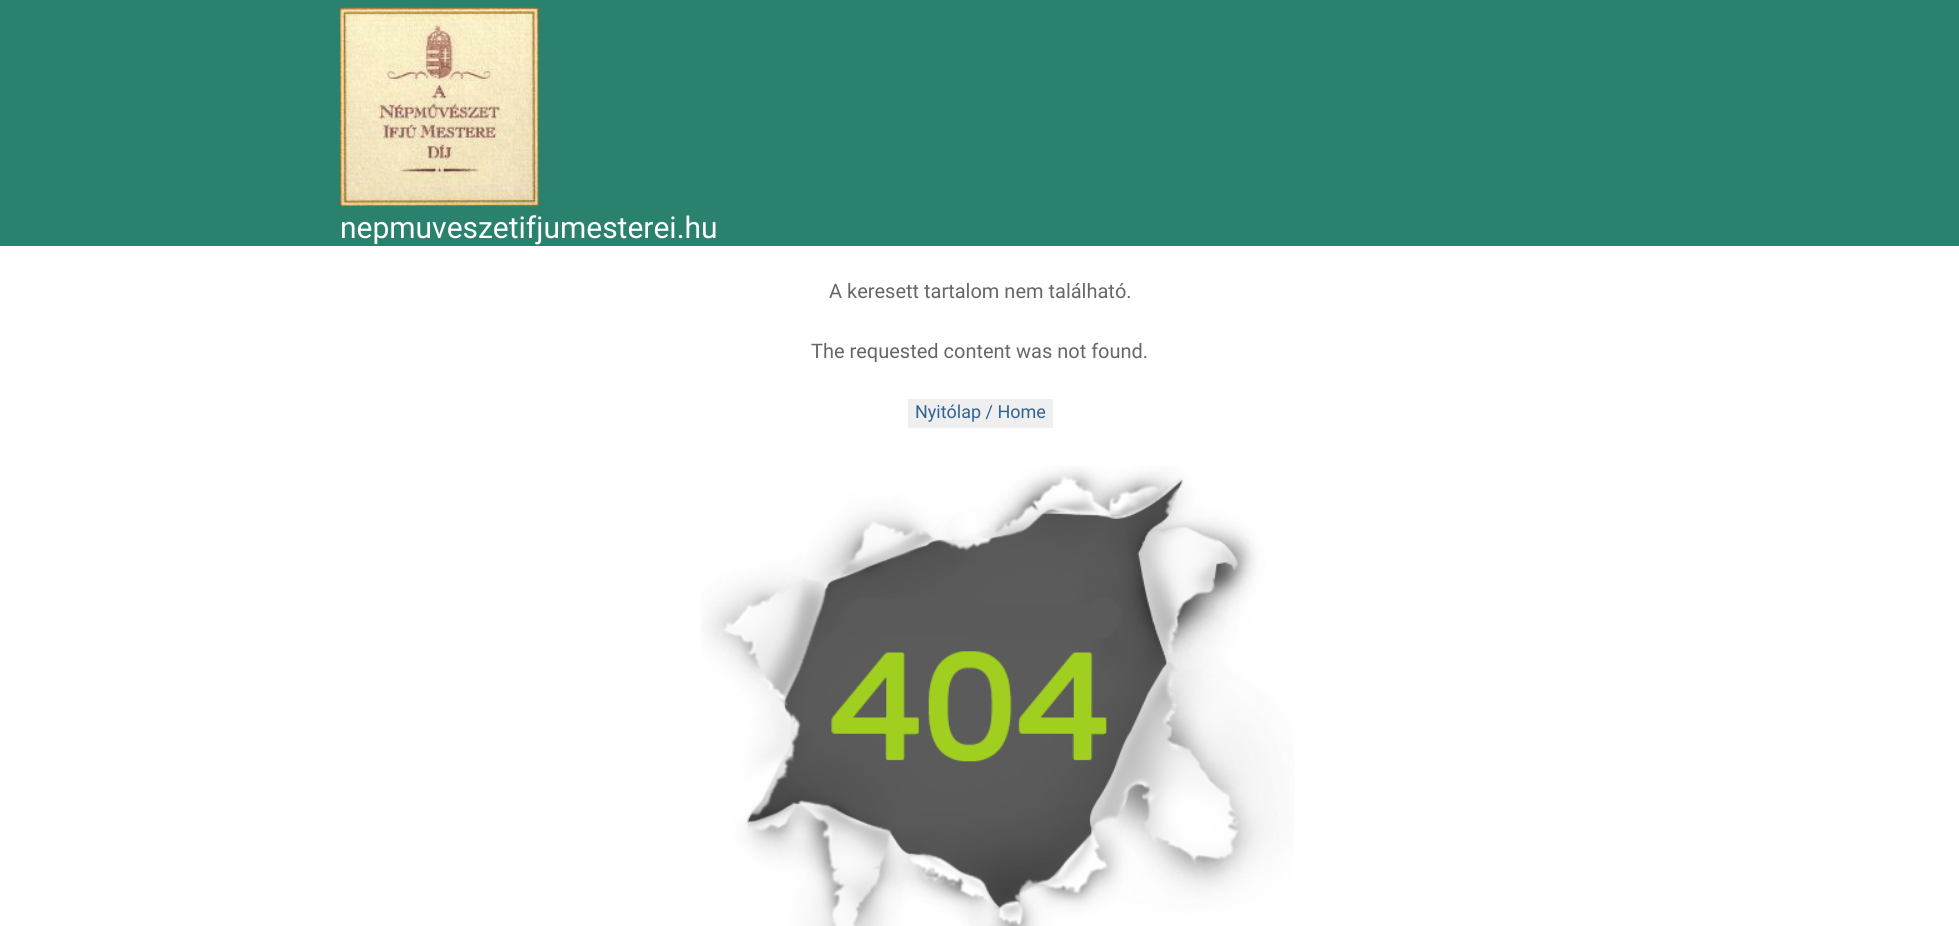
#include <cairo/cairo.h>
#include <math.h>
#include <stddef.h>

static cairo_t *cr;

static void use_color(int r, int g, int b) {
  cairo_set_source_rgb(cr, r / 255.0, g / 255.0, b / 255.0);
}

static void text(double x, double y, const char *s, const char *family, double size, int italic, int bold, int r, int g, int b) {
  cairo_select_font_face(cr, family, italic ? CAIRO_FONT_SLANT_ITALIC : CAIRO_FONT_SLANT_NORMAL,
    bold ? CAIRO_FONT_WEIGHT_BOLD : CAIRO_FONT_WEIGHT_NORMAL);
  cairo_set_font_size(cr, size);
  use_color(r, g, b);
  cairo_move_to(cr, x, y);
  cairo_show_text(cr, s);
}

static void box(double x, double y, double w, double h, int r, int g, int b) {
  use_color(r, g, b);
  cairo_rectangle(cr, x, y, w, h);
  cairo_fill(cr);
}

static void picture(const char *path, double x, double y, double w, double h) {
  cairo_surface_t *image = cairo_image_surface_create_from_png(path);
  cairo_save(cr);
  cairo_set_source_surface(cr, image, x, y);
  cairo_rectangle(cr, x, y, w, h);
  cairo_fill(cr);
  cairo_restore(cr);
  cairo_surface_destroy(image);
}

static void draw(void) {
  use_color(255, 255, 255);
  cairo_paint(cr);
  box(0, 0, 1959, 246, 42, 129, 109);
  picture("img_01.png", 340, 7, 199, 200);
  box(908, 399, 145, 29, 239, 239, 239);
  picture("img_02.png", 701, 466, 593, 460);
  text(340, 238, "nepmuveszetifjumesterei.hu", "Roboto", 30, 0, 0, 255, 255, 255);
  text(829, 298, "A keresett tartalom nem található.", "Roboto", 20, 0, 0, 102, 102, 102);
  text(811, 358, "The requested content was not found.", "Roboto", 20, 0, 0, 102, 102, 102);
  text(915, 418, "Nyitólap / Home", "Roboto", 18, 0, 0, 47, 99, 145);
}

int main(void) {
  cairo_surface_t *surface = cairo_image_surface_create(CAIRO_FORMAT_RGB24, 1959, 926);
  cr = cairo_create(surface);
  cairo_font_options_t *options = cairo_font_options_create();
  cairo_font_options_set_hint_metrics(options, CAIRO_HINT_METRICS_OFF);
  cairo_font_options_set_hint_style(options, CAIRO_HINT_STYLE_NONE);
  cairo_set_font_options(cr, options);
  cairo_set_miter_limit(cr, 4);
  draw();
  cairo_surface_write_to_png(surface, "out.png");
  cairo_font_options_destroy(options);
  cairo_destroy(cr);
  cairo_surface_destroy(surface);
  return 0;
}
